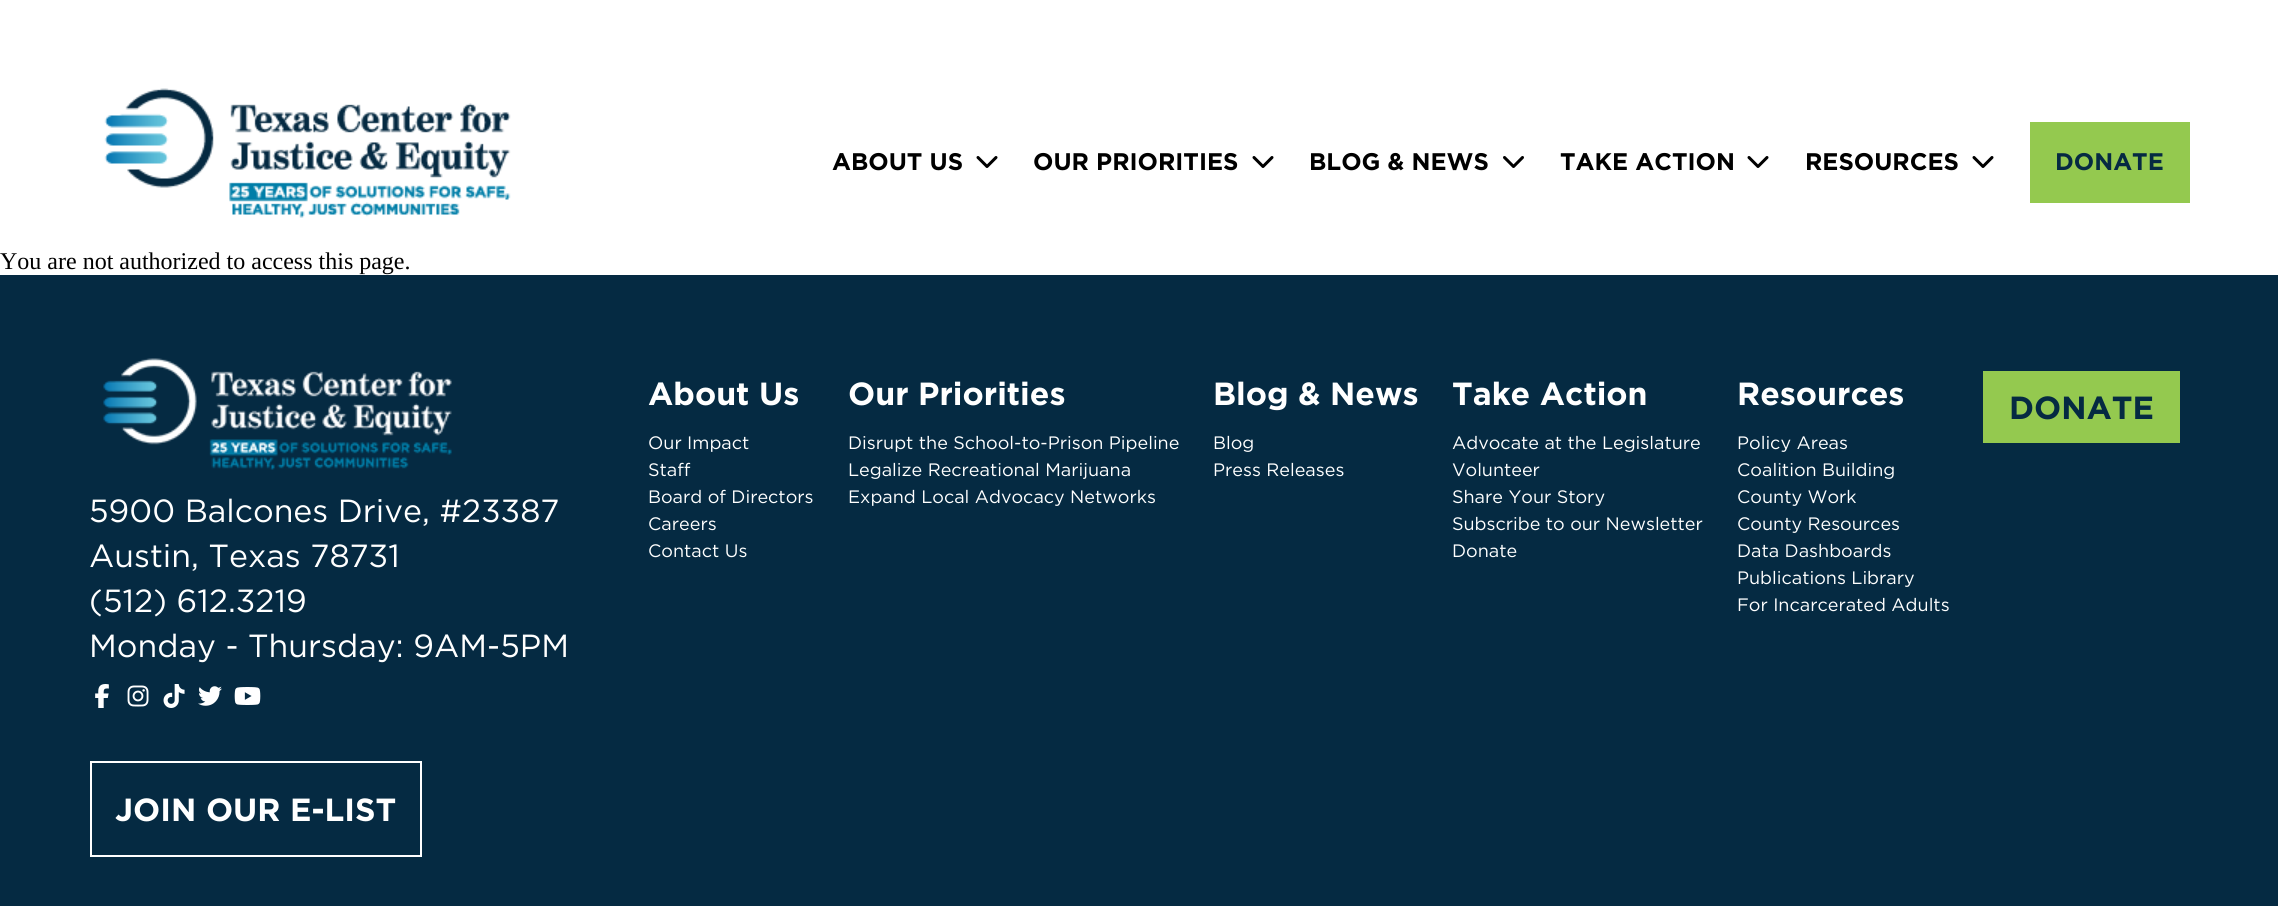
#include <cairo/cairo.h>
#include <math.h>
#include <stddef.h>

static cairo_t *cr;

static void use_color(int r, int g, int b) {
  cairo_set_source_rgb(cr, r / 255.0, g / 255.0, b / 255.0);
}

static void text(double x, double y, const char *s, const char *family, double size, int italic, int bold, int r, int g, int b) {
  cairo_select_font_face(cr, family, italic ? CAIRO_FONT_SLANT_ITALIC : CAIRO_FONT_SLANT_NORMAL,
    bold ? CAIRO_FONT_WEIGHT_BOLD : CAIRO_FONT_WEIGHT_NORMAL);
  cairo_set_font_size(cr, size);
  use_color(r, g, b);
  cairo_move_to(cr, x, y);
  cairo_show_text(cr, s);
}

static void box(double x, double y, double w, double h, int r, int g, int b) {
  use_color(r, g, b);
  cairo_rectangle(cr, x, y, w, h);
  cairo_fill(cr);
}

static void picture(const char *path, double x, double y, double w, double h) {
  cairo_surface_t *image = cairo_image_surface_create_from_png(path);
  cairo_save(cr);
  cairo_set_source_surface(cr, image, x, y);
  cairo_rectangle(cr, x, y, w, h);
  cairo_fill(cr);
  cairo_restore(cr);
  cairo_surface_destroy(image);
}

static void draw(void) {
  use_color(255, 255, 255);
  cairo_paint(cr);
  picture("img_01.png", 104, 88, 407, 130);
  picture("img_02.png", 976, 156, 22, 12);
  picture("img_02.png", 1252, 156, 22, 12);
  picture("img_03.png", 1503, 156, 21, 12);
  picture("img_02.png", 1747, 156, 22, 12);
  picture("img_02.png", 1972, 156, 22, 12);
  box(2030, 122, 160, 81, 148, 201, 79);
  box(0, 275, 2278, 631, 5, 42, 66);
  picture("img_04.png", 103, 358, 349, 112);
  picture("img_05.png", 95, 684, 14, 24);
  picture("img_06.png", 127, 685, 22, 22);
  picture("img_07.png", 163, 684, 22, 24);
  picture("img_08.png", 198, 686, 24, 20);
  picture("img_09.png", 234, 687, 27, 18);
  cairo_rectangle(cr, 91, 762, 330, 94);
  use_color(255, 255, 255);
  cairo_stroke(cr);
  box(1983, 371, 197, 72, 148, 201, 79);
  text(832, 170, "ABOUT US", "Gotham", 24, 0, 1, 0, 0, 0);
  text(1033, 170, "OUR PRIORITIES", "Gotham", 24, 0, 1, 0, 0, 0);
  text(1309, 170, "BLOG & NEWS", "Gotham", 24, 0, 1, 0, 0, 0);
  text(1560, 170, "TAKE ACTION", "Gotham", 24, 0, 1, 0, 0, 0);
  text(1805, 170, "RESOURCES", "Gotham", 24, 0, 1, 0, 0, 0);
  text(2055, 170, "DONATE", "Gotham", 24, 0, 1, 5, 42, 66);
  text(0, 269, "You are not authorized to access this page.", "Liberation Serif", 24, 0, 0, 0, 0, 0);
  text(89, 522, "5900 Balcones Drive, #23387", "Gotham", 32, 0, 0, 255, 255, 255);
  text(89, 567, "Austin, Texas 78731", "Gotham", 32, 0, 0, 255, 255, 255);
  text(89, 612, "(512) 612.3219", "Gotham", 32, 0, 0, 255, 255, 255);
  text(89, 657, "Monday - Thursday: 9AM-5PM", "Gotham", 32, 0, 0, 255, 255, 255);
  text(115, 821, "JOIN OUR E-LIST", "Gotham", 32, 0, 1, 255, 255, 255);
  text(648, 405, "About Us", "Gotham", 32, 0, 1, 255, 255, 255);
  text(648, 449, "Our Impact", "Gotham", 18, 0, 0, 255, 255, 255);
  text(648, 476, "Staff", "Gotham", 18, 0, 0, 255, 255, 255);
  text(648, 503, "Board of Directors", "Gotham", 18, 0, 0, 255, 255, 255);
  text(648, 530, "Careers", "Gotham", 18, 0, 0, 255, 255, 255);
  text(648, 557, "Contact Us", "Gotham", 18, 0, 0, 255, 255, 255);
  text(848, 405, "Our Priorities", "Gotham", 32, 0, 1, 255, 255, 255);
  text(848, 449, "Disrupt the School-to-Prison Pipeline", "Gotham", 18, 0, 0, 255, 255, 255);
  text(848, 476, "Legalize Recreational Marijuana", "Gotham", 18, 0, 0, 255, 255, 255);
  text(848, 503, "Expand Local Advocacy Networks", "Gotham", 18, 0, 0, 255, 255, 255);
  text(1213, 405, "Blog & News", "Gotham", 32, 0, 1, 255, 255, 255);
  text(1213, 449, "Blog", "Gotham", 18, 0, 0, 255, 255, 255);
  text(1213, 476, "Press Releases", "Gotham", 18, 0, 0, 255, 255, 255);
  text(1452, 405, "Take Action", "Gotham", 32, 0, 1, 255, 255, 255);
  text(1452, 449, "Advocate at the Legislature", "Gotham", 18, 0, 0, 255, 255, 255);
  text(1452, 476, "Volunteer", "Gotham", 18, 0, 0, 255, 255, 255);
  text(1452, 503, "Share Your Story", "Gotham", 18, 0, 0, 255, 255, 255);
  text(1452, 530, "Subscribe to our Newsletter", "Gotham", 18, 0, 0, 255, 255, 255);
  text(1452, 557, "Donate", "Gotham", 18, 0, 0, 255, 255, 255);
  text(1737, 405, "Resources", "Gotham", 32, 0, 1, 255, 255, 255);
  text(1737, 449, "Policy Areas", "Gotham", 18, 0, 0, 255, 255, 255);
  text(1737, 476, "Coalition Building", "Gotham", 18, 0, 0, 255, 255, 255);
  text(1737, 503, "County Work", "Gotham", 18, 0, 0, 255, 255, 255);
  text(1737, 530, "County Resources", "Gotham", 18, 0, 0, 255, 255, 255);
  text(1737, 557, "Data Dashboards", "Gotham", 18, 0, 0, 255, 255, 255);
  text(1737, 584, "Publications Library", "Gotham", 18, 0, 0, 255, 255, 255);
  text(1737, 611, "For Incarcerated Adults", "Gotham", 18, 0, 0, 255, 255, 255);
  text(2009, 419, "DONATE", "Gotham", 32, 0, 1, 5, 42, 66);
}

int main(void) {
  cairo_surface_t *surface = cairo_image_surface_create(CAIRO_FORMAT_RGB24, 2278, 906);
  cr = cairo_create(surface);
  cairo_font_options_t *options = cairo_font_options_create();
  cairo_font_options_set_hint_metrics(options, CAIRO_HINT_METRICS_OFF);
  cairo_font_options_set_hint_style(options, CAIRO_HINT_STYLE_NONE);
  cairo_set_font_options(cr, options);
  cairo_set_miter_limit(cr, 4);
  draw();
  cairo_surface_write_to_png(surface, "out.png");
  cairo_font_options_destroy(options);
  cairo_destroy(cr);
  cairo_surface_destroy(surface);
  return 0;
}
